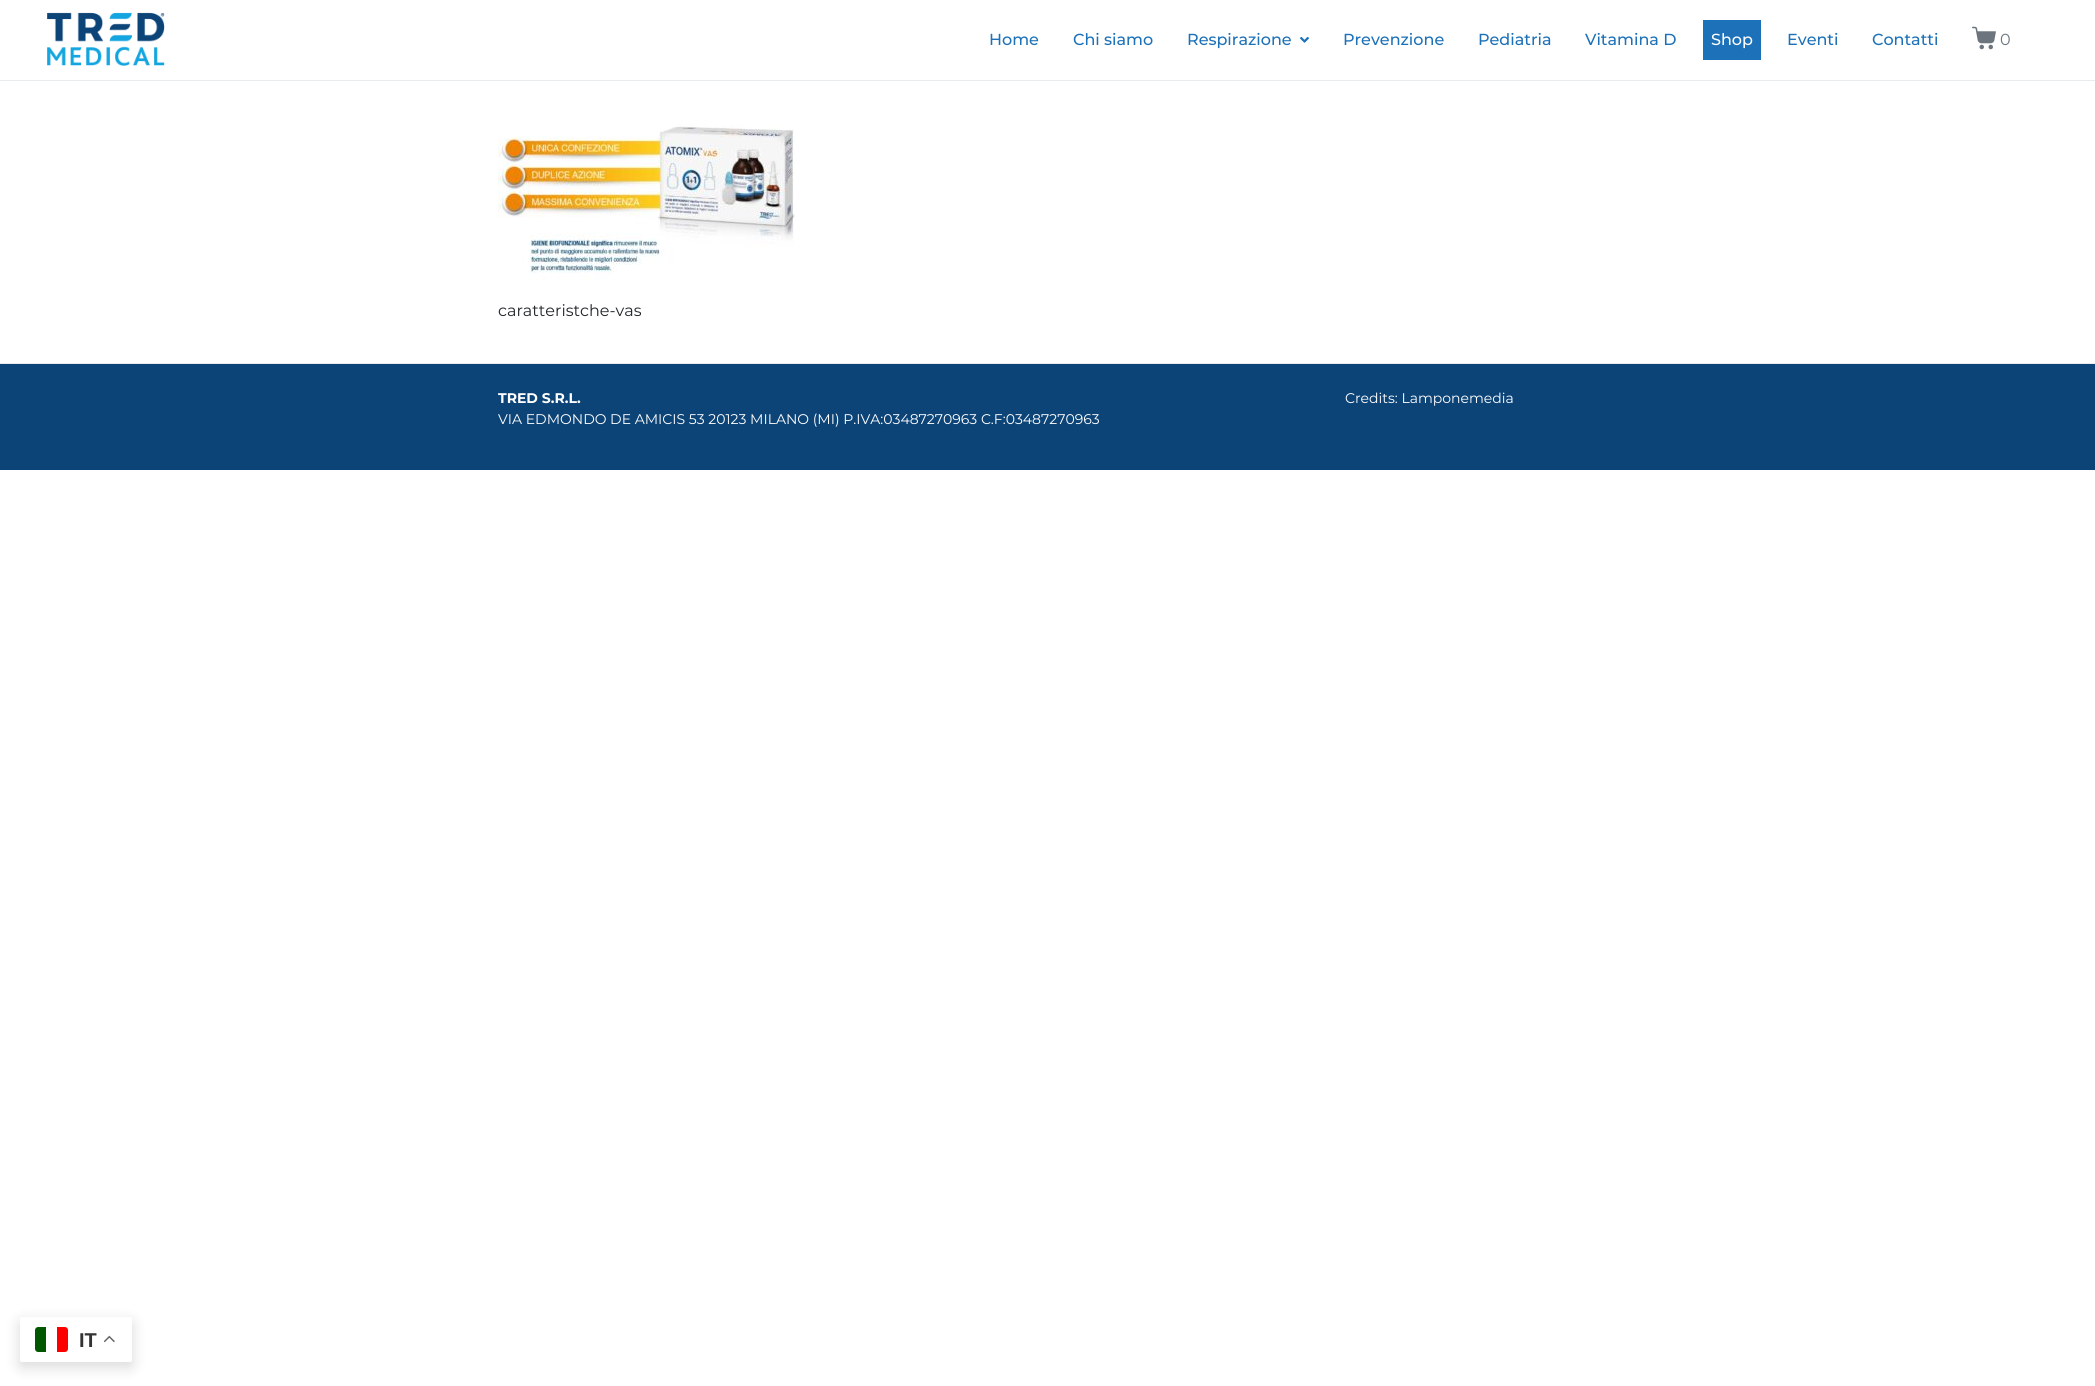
#include <cairo/cairo.h>
#include <math.h>
#include <stddef.h>

static cairo_t *cr;

static void use_color(int r, int g, int b) {
  cairo_set_source_rgb(cr, r / 255.0, g / 255.0, b / 255.0);
}

static void text(double x, double y, const char *s, const char *family, double size, int italic, int bold, int r, int g, int b) {
  cairo_select_font_face(cr, family, italic ? CAIRO_FONT_SLANT_ITALIC : CAIRO_FONT_SLANT_NORMAL,
    bold ? CAIRO_FONT_WEIGHT_BOLD : CAIRO_FONT_WEIGHT_NORMAL);
  cairo_set_font_size(cr, size);
  use_color(r, g, b);
  cairo_move_to(cr, x, y);
  cairo_show_text(cr, s);
}

static void box(double x, double y, double w, double h, int r, int g, int b) {
  use_color(r, g, b);
  cairo_rectangle(cr, x, y, w, h);
  cairo_fill(cr);
}

static void round_rect(double x, double y, double w, double h, double r) {
  cairo_new_sub_path(cr);
  cairo_arc(cr, x + w - r, y + h - r, r, 0, M_PI / 2);
  cairo_arc(cr, x + r, y + h - r, r, M_PI / 2, M_PI);
  cairo_arc(cr, x + r, y + r, r, M_PI, 1.5 * M_PI);
  cairo_arc(cr, x + w - r, y + r, r, 1.5 * M_PI, 2 * M_PI);
  cairo_close_path(cr);
}

static void shadow(double x, double y, double w, double h, double r, double blur, double alpha) {
  cairo_push_group_with_content(cr, CAIRO_CONTENT_ALPHA);
  cairo_set_operator(cr, CAIRO_OPERATOR_SOURCE);
  for (int i = 15; i >= -15 && fmin(w, h) + blur * i / 3 > 0; i -= 2) {
    double e = blur * i / 6;
    cairo_set_source_rgba(cr, 0, 0, 0, alpha * erfc((i - 1) / 8.5) / 2);
    round_rect(x - e, y - e, w + 2 * e, h + 2 * e, fmax(0, fmin(r + e + blur * .6, fmin(w, h) / 2 + e)));
    cairo_fill(cr);
  }
  cairo_pattern_t *soft = cairo_pop_group(cr);
  cairo_mask(cr, soft);
  cairo_pattern_destroy(soft);
}

static void picture(const char *path, double x, double y, double w, double h) {
  cairo_surface_t *image = cairo_image_surface_create_from_png(path);
  cairo_save(cr);
  cairo_set_source_surface(cr, image, x, y);
  cairo_rectangle(cr, x, y, w, h);
  cairo_fill(cr);
  cairo_restore(cr);
  cairo_surface_destroy(image);
}

static void draw(void) {
  use_color(255, 255, 255);
  cairo_paint(cr);
  box(0, 80, 2095, 1, 233, 236, 239);
  picture("img_01.png", 47, 12, 118, 54);
  picture("img_02.png", 1300, 36, 9, 7);
  box(1703, 20, 58, 40, 29, 113, 184);
  picture("img_03.png", 1972, 26, 24, 24);
  picture("img_04.png", 498, 124, 298, 156);
  box(0, 364, 2095, 106, 13, 68, 120);
  box(0, 363, 2095, 1, 233, 236, 239);
  use_color(0, 0, 0);
  shadow(20, 1322, 112, 45, 2, 7.5, 0.15);
  use_color(255, 255, 255);
  round_rect(20, 1317, 112, 45, 2);
  cairo_fill(cr);
  use_color(0, 87, 0);
  cairo_new_path(cr);
  cairo_move_to(cr, 38, 1327);
  cairo_line_to(cr, 46, 1327);
  cairo_line_to(cr, 46, 1352);
  cairo_line_to(cr, 38, 1352);
  cairo_curve_to(cr, 36.5, 1352, 35, 1350.5, 35, 1349);
  cairo_line_to(cr, 35, 1330);
  cairo_curve_to(cr, 35, 1328.5, 36.5, 1327, 38, 1327);
  cairo_close_path(cr);
  cairo_fill(cr);
  use_color(252, 0, 0);
  cairo_new_path(cr);
  cairo_move_to(cr, 57, 1327);
  cairo_line_to(cr, 65, 1327);
  cairo_curve_to(cr, 66.5, 1327, 68, 1328.5, 68, 1330);
  cairo_line_to(cr, 68, 1349);
  cairo_curve_to(cr, 68, 1350.5, 66.5, 1352, 65, 1352);
  cairo_line_to(cr, 57, 1352);
  cairo_close_path(cr);
  cairo_fill(cr);
  picture("img_05.png", 104, 1335, 11, 8);
  text(989, 45, "Home", "Montserrat Medium", 16, 0, 0, 29, 113, 184);
  text(1073, 45, "Chi siamo", "Montserrat Medium", 16, 0, 0, 29, 113, 184);
  text(1187, 45, "Respirazione", "Montserrat Medium", 16, 0, 0, 29, 113, 184);
  text(1343, 45, "Prevenzione", "Montserrat Medium", 16, 0, 0, 29, 113, 184);
  text(1478, 45, "Pediatria", "Montserrat Medium", 16, 0, 0, 29, 113, 184);
  text(1585, 45, "Vitamina D", "Montserrat Medium", 16, 0, 0, 29, 113, 184);
  text(1711, 45, "Shop", "Montserrat Medium", 16, 0, 0, 255, 255, 255);
  text(1787, 45, "Eventi", "Montserrat Medium", 16, 0, 0, 29, 113, 184);
  text(1872, 45, "Contatti", "Montserrat Medium", 16, 0, 0, 29, 113, 184);
  text(2000, 45, "0", "Montserrat", 16, 0, 0, 108, 117, 125);
  text(498, 316, "caratteristche-vas", "Montserrat", 16, 0, 0, 33, 37, 41);
  text(498, 403, "TRED S.R.L.", "Montserrat", 14, 0, 1, 255, 255, 255);
  text(498, 424, "VIA EDMONDO DE AMICIS 53 20123 MILANO (MI) P.IVA:03487270963 C.F:03487270963", "Montserrat", 14, 0, 0, 255, 255, 255);
  text(1345, 403, "Credits: Lamponemedia", "Montserrat", 14, 0, 0, 255, 255, 255);
  text(79, 1347, "IT", "Liberation Sans", 20, 0, 1, 51, 51, 51);
}

int main(void) {
  cairo_surface_t *surface = cairo_image_surface_create(CAIRO_FORMAT_RGB24, 2095, 1386);
  cr = cairo_create(surface);
  cairo_font_options_t *options = cairo_font_options_create();
  cairo_font_options_set_hint_metrics(options, CAIRO_HINT_METRICS_OFF);
  cairo_font_options_set_hint_style(options, CAIRO_HINT_STYLE_NONE);
  cairo_set_font_options(cr, options);
  cairo_set_miter_limit(cr, 4);
  draw();
  cairo_surface_write_to_png(surface, "out.png");
  cairo_font_options_destroy(options);
  cairo_destroy(cr);
  cairo_surface_destroy(surface);
  return 0;
}
